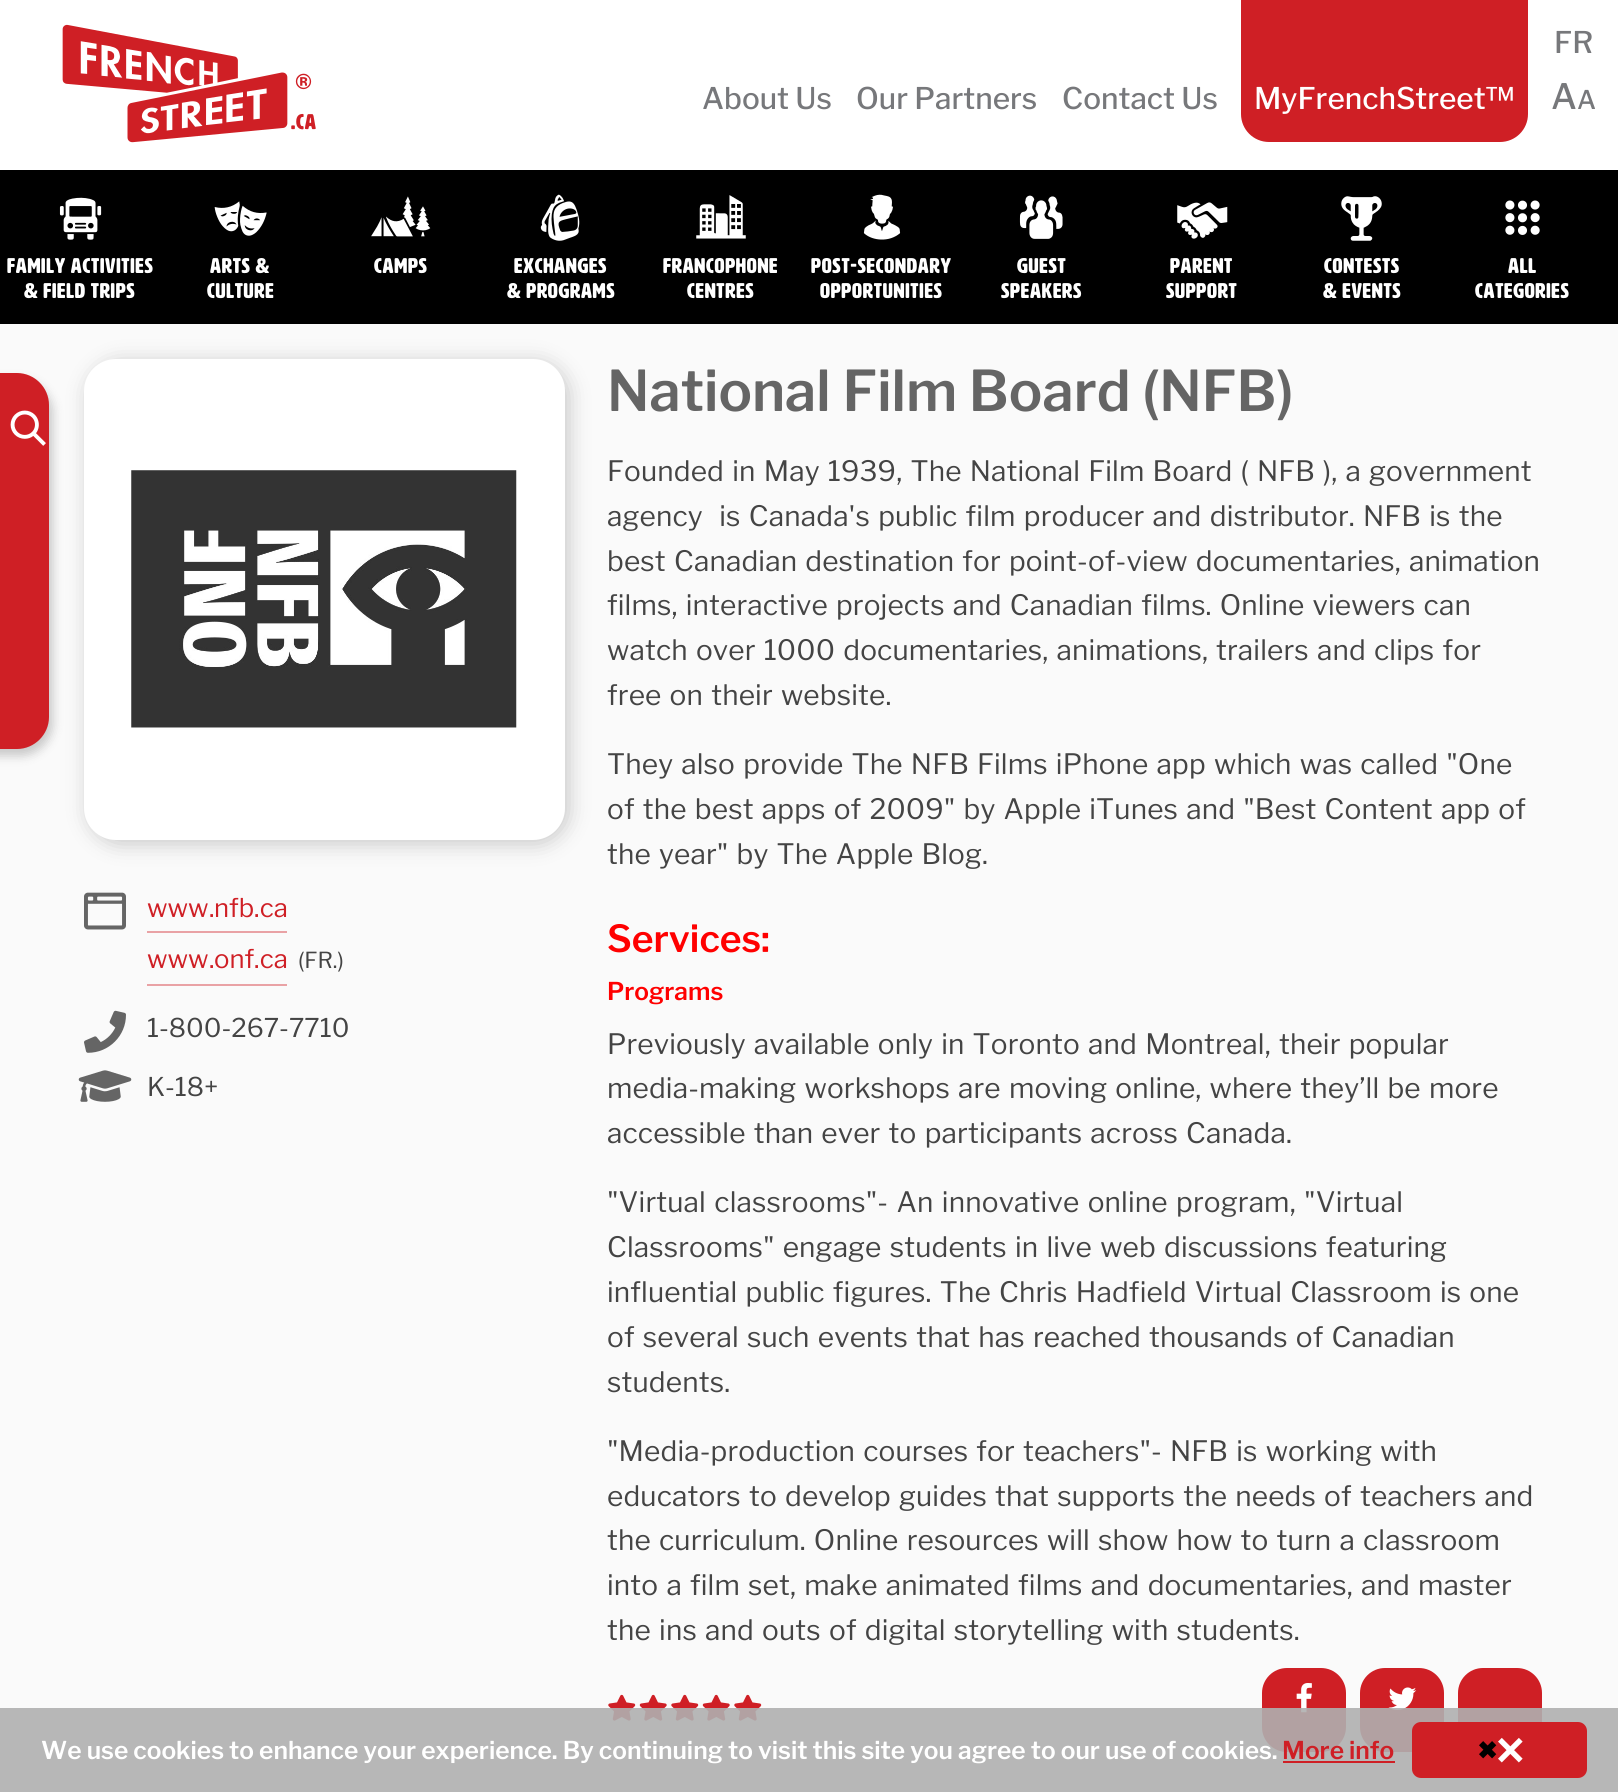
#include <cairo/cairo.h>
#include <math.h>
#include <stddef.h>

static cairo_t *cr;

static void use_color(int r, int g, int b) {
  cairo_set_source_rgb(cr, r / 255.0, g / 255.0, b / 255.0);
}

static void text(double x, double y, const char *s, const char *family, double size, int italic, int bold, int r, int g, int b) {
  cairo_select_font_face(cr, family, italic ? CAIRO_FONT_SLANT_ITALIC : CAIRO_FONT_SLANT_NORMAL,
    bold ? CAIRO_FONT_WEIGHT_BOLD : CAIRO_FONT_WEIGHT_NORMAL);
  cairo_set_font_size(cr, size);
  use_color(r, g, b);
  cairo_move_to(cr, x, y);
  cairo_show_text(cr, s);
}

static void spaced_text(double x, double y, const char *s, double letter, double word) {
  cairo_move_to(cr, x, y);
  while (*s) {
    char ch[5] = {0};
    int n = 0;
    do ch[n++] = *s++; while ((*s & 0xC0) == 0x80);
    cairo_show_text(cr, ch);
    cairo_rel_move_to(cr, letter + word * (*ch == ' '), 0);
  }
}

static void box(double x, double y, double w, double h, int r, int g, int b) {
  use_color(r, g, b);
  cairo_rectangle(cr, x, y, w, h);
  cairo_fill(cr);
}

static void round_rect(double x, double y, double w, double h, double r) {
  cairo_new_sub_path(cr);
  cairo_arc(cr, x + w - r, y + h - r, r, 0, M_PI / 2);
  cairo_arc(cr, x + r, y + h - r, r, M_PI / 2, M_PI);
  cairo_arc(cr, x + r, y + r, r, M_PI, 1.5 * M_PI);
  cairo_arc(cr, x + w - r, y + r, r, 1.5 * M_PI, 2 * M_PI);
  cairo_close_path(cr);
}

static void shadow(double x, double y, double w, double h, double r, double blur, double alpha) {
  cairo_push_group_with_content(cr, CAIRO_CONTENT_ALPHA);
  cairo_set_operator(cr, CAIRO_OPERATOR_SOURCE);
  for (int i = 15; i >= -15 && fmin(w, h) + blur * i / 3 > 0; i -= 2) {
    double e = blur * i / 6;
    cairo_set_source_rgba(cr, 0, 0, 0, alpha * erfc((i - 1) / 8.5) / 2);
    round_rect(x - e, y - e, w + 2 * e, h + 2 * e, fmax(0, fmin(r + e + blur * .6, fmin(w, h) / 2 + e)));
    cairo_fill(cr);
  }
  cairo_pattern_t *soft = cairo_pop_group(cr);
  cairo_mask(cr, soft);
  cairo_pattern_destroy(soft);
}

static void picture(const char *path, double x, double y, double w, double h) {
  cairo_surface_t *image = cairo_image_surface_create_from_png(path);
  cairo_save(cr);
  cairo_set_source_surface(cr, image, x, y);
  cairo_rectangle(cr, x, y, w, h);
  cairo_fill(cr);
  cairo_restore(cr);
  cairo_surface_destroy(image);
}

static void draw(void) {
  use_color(255, 255, 255);
  cairo_paint(cr);
  picture("img_01.png", 62, 24, 254, 119);
  use_color(207, 31, 37);
  cairo_new_path(cr);
  cairo_move_to(cr, 1241, 0);
  cairo_line_to(cr, 1528, 0);
  cairo_line_to(cr, 1528, 114);
  cairo_curve_to(cr, 1528, 129.5, 1515.5, 142, 1500, 142);
  cairo_line_to(cr, 1269, 142);
  cairo_curve_to(cr, 1253.5, 142, 1241, 129.5, 1241, 114);
  cairo_close_path(cr);
  cairo_fill(cr);
  box(0, 170, 1618, 154, 0, 0, 0);
  picture("img_02.png", 59, 197, 43, 43);
  picture("img_03.png", 214, 201, 53, 35);
  picture("img_04.png", 371, 196, 60, 41);
  picture("img_05.png", 540, 194, 40, 47);
  picture("img_06.png", 696, 195, 50, 44);
  picture("img_07.png", 863, 194, 38, 46);
  picture("img_08.png", 1019, 195, 44, 44);
  picture("img_09.png", 1177, 202, 51, 37);
  picture("img_10.png", 1341, 196, 41, 45);
  picture("img_11.png", 1505, 200, 35, 35);
  box(0, 324, 1618, 1468, 250, 250, 250);
  use_color(0, 0, 0);
  shadow(-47, 380, 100, 376, 32, 5, 0.2);
  use_color(207, 31, 37);
  cairo_new_path(cr);
  cairo_move_to(cr, -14, 373);
  cairo_line_to(cr, 17, 373);
  cairo_curve_to(cr, 34.5, 373, 49, 387.5, 49, 405);
  cairo_line_to(cr, 49, 717);
  cairo_curve_to(cr, 49, 734.5, 34.5, 749, 17, 749);
  cairo_line_to(cr, -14, 749);
  cairo_close_path(cr);
  cairo_fill(cr);
  picture("img_12.png", 10, 410, 36, 36);
  use_color(0, 0, 0);
  shadow(88, 362, 481, 482, 32, 10.5, 0.2);
  use_color(255, 255, 255);
  round_rect(84, 359, 481, 481, 32);
  cairo_fill(cr);
  picture("img_13.png", 131, 470, 386, 258);
  picture("img_14.png", 84, 892, 42, 38);
  box(147, 931, 140, 2, 233, 162, 165);
  box(147, 984, 140, 2, 233, 162, 165);
  picture("img_15.png", 84, 1010, 42, 43);
  picture("img_16.png", 78, 1070, 54, 32);
  picture("img_17.png", 608, 1694, 28, 27);
  picture("img_18.png", 639, 1694, 28, 27);
  picture("img_17.png", 671, 1694, 28, 27);
  picture("img_18.png", 702, 1694, 28, 27);
  picture("img_17.png", 734, 1694, 28, 27);
  use_color(207, 31, 37);
  round_rect(1262, 1668, 84, 84, 25);
  cairo_fill(cr);
  picture("img_19.png", 1296, 1683, 16, 30);
  round_rect(1360, 1668, 84, 84, 25);
  cairo_fill(cr);
  picture("img_20.png", 1388, 1687, 29, 23);
  round_rect(1458, 1668, 84, 84, 25);
  cairo_fill(cr);
  cairo_set_source_rgba(cr, 0.686, 0.686, 0.686, 0.9);
  cairo_rectangle(cr, 0, 1708, 1618, 84);
  cairo_fill(cr);
  box(1283, 1761, 112, 2, 207, 31, 37);
  round_rect(1412, 1722, 175, 56, 9);
  cairo_fill(cr);
  picture("img_21.png", 1498, 1737, 25, 26);
  text(1554, 53, "FR", "Libre Franklin Medium", 29.75, 0, 0, 119, 120, 123);
  text(702, 109, "About Us", "Libre Franklin Medium", 29.75, 0, 0, 119, 120, 123);
  text(856, 109, "Our Partners", "Libre Franklin Medium", 29.75, 0, 0, 119, 120, 123);
  text(1062, 109, "Contact Us", "Libre Franklin Medium", 29.75, 0, 0, 119, 120, 123);
  text(1254, 109, "MyFrenchStreet™", "Libre Franklin Medium", 29.75, 0, 0, 255, 255, 255);
  text(1551, 109, "A", "Libre Franklin Medium", 35, 0, 0, 119, 120, 123);
  text(1577, 109, "A", "Libre Franklin Medium", 25.75, 0, 0, 119, 120, 123);
  cairo_select_font_face(cr, "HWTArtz", CAIRO_FONT_SLANT_NORMAL, CAIRO_FONT_WEIGHT_NORMAL);
  cairo_set_font_size(cr, 21);
  use_color(255, 255, 255);
  spaced_text(7, 273, "Family Activities", 0.75, 0);
  spaced_text(24, 298, "& Field Trips", 0.75, 0);
  spaced_text(210, 273, "Arts &", 0.75, 0);
  spaced_text(207, 298, "Culture", 0.75, 0);
  spaced_text(374, 273, "Camps", 0.75, 0);
  spaced_text(514, 273, "Exchanges", 0.75, 0);
  spaced_text(507, 298, "& Programs", 0.75, 0);
  spaced_text(663, 273, "Francophone", 0.75, 0);
  spaced_text(687, 298, "Centres", 0.75, 0);
  spaced_text(811, 273, "Post-Secondary", 0.8, 0);
  spaced_text(820, 298, "Opportunities", 0.8, 0);
  spaced_text(1017, 273, "Guest", 0.8, 0);
  spaced_text(1001, 298, "Speakers", 0.8, 0);
  spaced_text(1170, 273, "Parent", 0.75, 0);
  spaced_text(1166, 298, "Support", 0.75, 0);
  spaced_text(1324, 273, "Contests", 0.75, 0);
  spaced_text(1323, 298, "& Events", 0.75, 0);
  spaced_text(1508, 273, "All", 0.75, 0);
  spaced_text(1475, 298, "Categories", 0.75, 0);
  text(209, 917, ".", "Libre Franklin", 25.75, 0, 0, 207, 31, 37);
  text(254, 917, ".", "Libre Franklin", 25.75, 0, 0, 207, 31, 37);
  text(147, 917, "www nfb ca", "Libre Franklin", 25.75, 0, 0, 207, 31, 37);
  text(209, 968, ".", "Libre Franklin", 25.75, 0, 0, 207, 31, 37);
  text(254, 968, ".", "Libre Franklin", 25.75, 0, 0, 207, 31, 37);
  text(147, 968, "www onf ca", "Libre Franklin", 25.75, 0, 0, 207, 31, 37);
  text(298, 968, "(FR.)", "Libre Franklin", 22, 0, 0, 68, 68, 68);
  text(147, 1037, "1-800-267-7710", "Libre Franklin", 25.75, 0, 0, 68, 68, 68);
  text(147, 1096, "K-18+", "Libre Franklin", 25.75, 0, 0, 68, 68, 68);
  text(607, 411, "National Film Board (NFB)", "Libre Franklin SemiBold", 56, 0, 0, 101, 101, 101);
  cairo_select_font_face(cr, "Libre Franklin", CAIRO_FONT_SLANT_NORMAL, CAIRO_FONT_WEIGHT_NORMAL);
  cairo_set_font_size(cr, 28);
  use_color(68, 68, 68);
  spaced_text(607, 481, "Founded in May 1939, The National Film Board ( NFB ), a government", 0.15, 2);
  spaced_text(607, 526, "agency  is Canada's public film producer and distributor. NFB is the", 0.15, 2.1);
  spaced_text(607, 571, "best Canadian destination for point-of-view documentaries, animation", 0.15, 2);
  spaced_text(607, 615, "films, interactive projects and Canadian films. Online viewers can", 0.15, 2);
  spaced_text(607, 660, "watch over 1000 documentaries, animations,", 0.15, 2);
  spaced_text(1216, 660, "trailers and clips for", 0.15, 2);
  spaced_text(607, 705, "free on their website.", 0.15, 2);
  spaced_text(607, 774, "They also provide The NFB Films iPhone app which was called \"One", 0.15, 2);
  spaced_text(607, 819, "of the best apps of 2009\" by Apple iTunes and \"Best Content app of", 0.15, 2);
  spaced_text(607, 864, "the year\" by The Apple Blog.", 0.15, 2);
  text(607, 952, "Services:", "Libre Franklin SemiBold", 37.25, 0, 0, 255, 0, 0);
  text(607, 1000, "Programs", "Libre Franklin SemiBold", 24.5, 0, 0, 255, 0, 0);
  cairo_select_font_face(cr, "Libre Franklin", CAIRO_FONT_SLANT_NORMAL, CAIRO_FONT_WEIGHT_NORMAL);
  cairo_set_font_size(cr, 28);
  use_color(68, 68, 68);
  spaced_text(607, 1054, "Previously available only in Toronto and Montreal, their popular", 0.15, 2);
  spaced_text(607, 1098, "media-making workshops are moving online, where they’ll be more", 0.15, 2);
  spaced_text(607, 1143, "accessible than ever to participants across Canada.", 0.15, 2);
  spaced_text(607, 1212, "\"Virtual classrooms\"- An innovative online program, \"Virtual", 0.15, 2.25);
  spaced_text(607, 1257, "Classrooms\" engage students in live web discussions featuring", 0.15, 2);
  spaced_text(607, 1302, "influential public figures. The Chris Hadfield Virtual Classroom is one", 0.15, 2);
  spaced_text(607, 1347, "of several such events that has reached thousands of Canadian", 0.15, 2);
  spaced_text(607, 1392, "students.", 0.15, 0);
  spaced_text(607, 1461, "\"Media-production courses for teachers\"- NFB is working with", 0.15, 2);
  spaced_text(607, 1506, "educators to develop guides that supports the needs of teachers and", 0.15, 2);
  spaced_text(607, 1550, "the curriculum. Online resources will show how to turn a classroom", 0.15, 2);
  spaced_text(607, 1595, "into a film set, make animated films and documentaries, and master", 0.15, 2);
  spaced_text(607, 1640, "the ins and outs of digital storytelling with students.", 0.15, 2);
  text(41, 1759, "We use cookies to enhance your experience. By continuing to visit this site you agree to our use of cookies.", "Libre Franklin SemiBold", 24.5, 0, 0, 255, 255, 255);
  text(1282, 1759, "More info", "Libre Franklin SemiBold", 24.5, 0, 0, 207, 31, 37);
  text(1477, 1759, "✖", "DejaVu Sans", 24.5, 0, 1, 0, 0, 0);
}

int main(void) {
  cairo_surface_t *surface = cairo_image_surface_create(CAIRO_FORMAT_RGB24, 1618, 1792);
  cr = cairo_create(surface);
  cairo_font_options_t *options = cairo_font_options_create();
  cairo_font_options_set_hint_metrics(options, CAIRO_HINT_METRICS_OFF);
  cairo_font_options_set_hint_style(options, CAIRO_HINT_STYLE_NONE);
  cairo_set_font_options(cr, options);
  cairo_set_miter_limit(cr, 4);
  draw();
  cairo_surface_write_to_png(surface, "out.png");
  cairo_font_options_destroy(options);
  cairo_destroy(cr);
  cairo_surface_destroy(surface);
  return 0;
}
